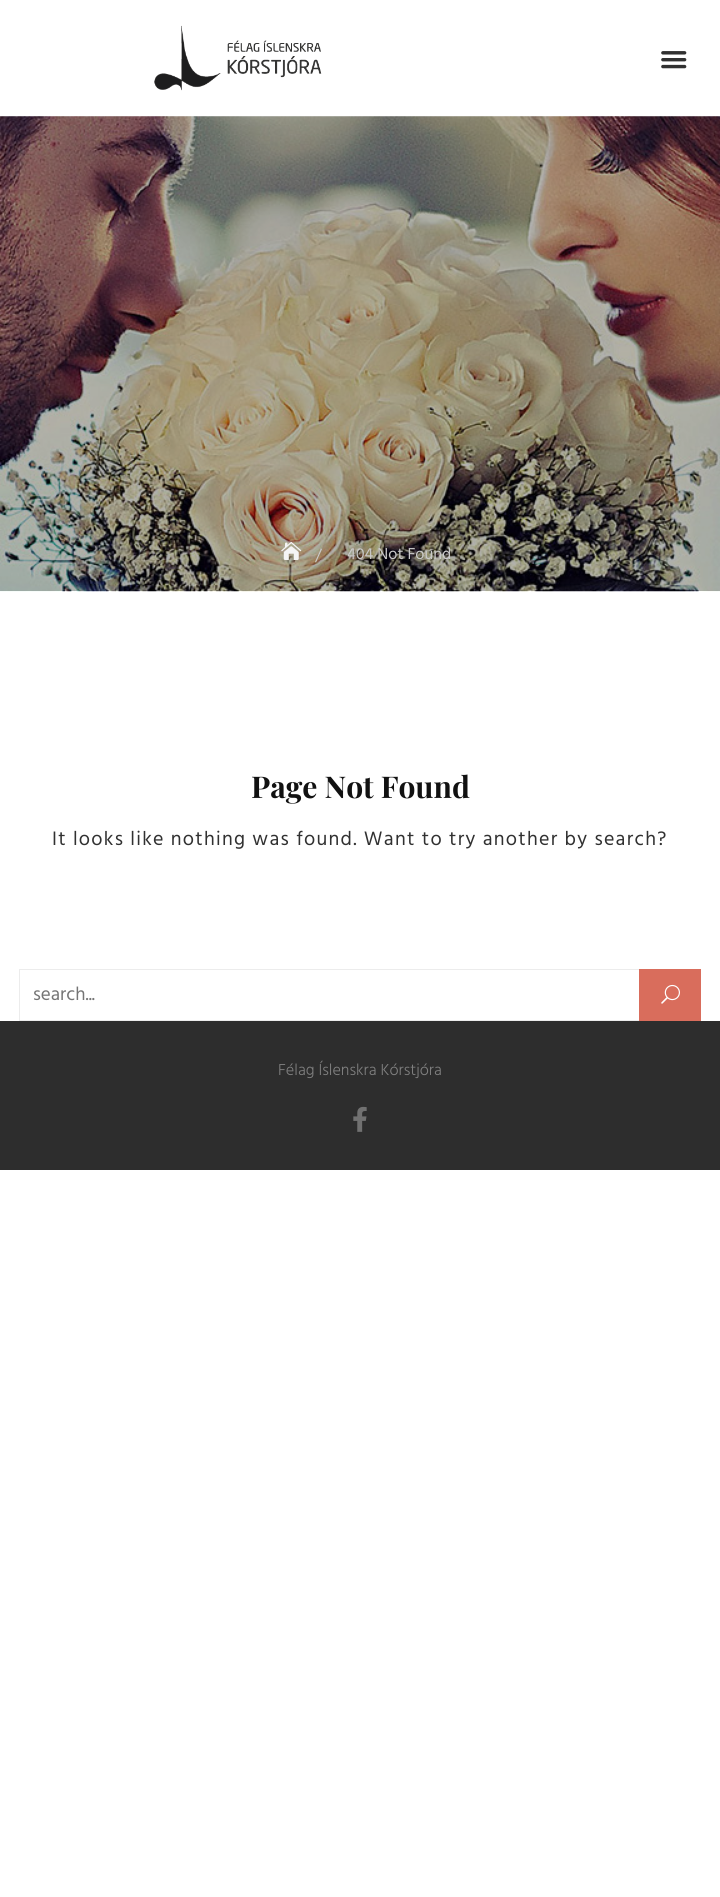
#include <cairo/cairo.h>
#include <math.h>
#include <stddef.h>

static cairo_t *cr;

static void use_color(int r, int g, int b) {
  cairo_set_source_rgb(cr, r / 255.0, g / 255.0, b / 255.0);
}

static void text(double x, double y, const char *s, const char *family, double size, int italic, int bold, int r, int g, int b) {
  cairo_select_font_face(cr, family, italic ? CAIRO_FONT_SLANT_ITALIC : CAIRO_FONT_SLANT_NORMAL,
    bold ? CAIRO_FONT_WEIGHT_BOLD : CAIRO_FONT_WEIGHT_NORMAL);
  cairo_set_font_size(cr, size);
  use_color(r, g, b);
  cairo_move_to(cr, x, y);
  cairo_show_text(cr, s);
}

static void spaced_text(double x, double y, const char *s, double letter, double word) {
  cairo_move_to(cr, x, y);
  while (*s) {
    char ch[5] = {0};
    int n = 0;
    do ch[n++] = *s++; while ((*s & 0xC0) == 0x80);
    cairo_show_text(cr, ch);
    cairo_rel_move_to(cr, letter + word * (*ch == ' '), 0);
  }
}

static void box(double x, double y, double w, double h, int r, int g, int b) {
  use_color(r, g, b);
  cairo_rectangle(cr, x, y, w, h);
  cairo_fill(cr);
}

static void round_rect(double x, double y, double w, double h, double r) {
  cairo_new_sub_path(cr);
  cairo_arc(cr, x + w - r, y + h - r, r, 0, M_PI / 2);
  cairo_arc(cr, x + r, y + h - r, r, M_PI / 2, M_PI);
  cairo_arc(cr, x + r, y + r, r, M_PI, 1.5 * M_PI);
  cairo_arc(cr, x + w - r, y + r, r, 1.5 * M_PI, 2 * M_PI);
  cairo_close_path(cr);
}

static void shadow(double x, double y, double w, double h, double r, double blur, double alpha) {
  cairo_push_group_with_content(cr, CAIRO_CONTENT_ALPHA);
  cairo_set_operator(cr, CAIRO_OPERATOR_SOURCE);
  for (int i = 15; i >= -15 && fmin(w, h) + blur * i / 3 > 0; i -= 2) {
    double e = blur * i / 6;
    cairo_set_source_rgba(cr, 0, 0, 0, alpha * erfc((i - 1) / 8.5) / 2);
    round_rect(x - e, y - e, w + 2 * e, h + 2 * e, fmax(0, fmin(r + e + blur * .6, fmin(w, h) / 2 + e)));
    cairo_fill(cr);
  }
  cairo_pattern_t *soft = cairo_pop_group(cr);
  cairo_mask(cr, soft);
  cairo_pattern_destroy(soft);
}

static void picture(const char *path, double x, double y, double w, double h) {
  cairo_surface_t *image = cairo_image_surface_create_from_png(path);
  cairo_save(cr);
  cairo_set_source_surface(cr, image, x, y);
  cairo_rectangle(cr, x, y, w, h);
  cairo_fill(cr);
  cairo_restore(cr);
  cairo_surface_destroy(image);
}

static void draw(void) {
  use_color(255, 255, 255);
  cairo_paint(cr);
  cairo_save(cr);
  cairo_rectangle(cr, 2, 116, 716, 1);
  cairo_clip(cr);
  use_color(0, 0, 0);
  shadow(0, 0, 720, 116, 0, 24, 0.1);
  cairo_restore(cr);
  picture("img_01.png", 154, 25, 168, 66);
  picture("img_02.png", 661, 51, 26, 18);
  picture("img_03.png", 0, 116, 720, 476);
  picture("img_04.png", 281, 541, 21, 19);
  use_color(204, 204, 204);
  cairo_new_path(cr);
  cairo_move_to(cr, 321, 548.5);
  cairo_line_to(cr, 322, 549);
  cairo_line_to(cr, 316, 562.5);
  cairo_line_to(cr, 315, 562);
  cairo_close_path(cr);
  cairo_fill(cr);
  cairo_rectangle(cr, 19.5, 969.5, 681, 51);
  use_color(236, 236, 236);
  cairo_set_line_width(cr, 1);
  cairo_stroke(cr);
  box(639, 969, 62, 52, 217, 109, 92);
  picture("img_05.png", 661, 984, 19, 20);
  box(0, 1021, 720, 149, 45, 45, 45);
  picture("img_06.png", 353, 1106, 14, 26);
  text(347, 559, "404 Not Found", "Hind", 16.25, 0, 0, 202, 202, 202);
  text(251, 798, "Page Not Found", "Playfair Display", 30, 0, 1, 17, 17, 17);
  cairo_select_font_face(cr, "Hind", CAIRO_FONT_SLANT_NORMAL, CAIRO_FONT_WEIGHT_NORMAL);
  cairo_set_font_size(cr, 20);
  use_color(49, 49, 49);
  spaced_text(52, 845, "It looks like nothing was found. Want to try another by search?", 1.25, 0);
  text(33, 1000, "search...", "Hind", 19, 0, 0, 117, 117, 117);
  text(278, 1075, "Félag Íslenskra Kórstjóra", "Hind Light", 16.25, 0, 0, 127, 127, 127);
}

int main(void) {
  cairo_surface_t *surface = cairo_image_surface_create(CAIRO_FORMAT_RGB24, 720, 1897);
  cr = cairo_create(surface);
  cairo_font_options_t *options = cairo_font_options_create();
  cairo_font_options_set_hint_metrics(options, CAIRO_HINT_METRICS_OFF);
  cairo_font_options_set_hint_style(options, CAIRO_HINT_STYLE_NONE);
  cairo_set_font_options(cr, options);
  cairo_set_miter_limit(cr, 4);
  draw();
  cairo_surface_write_to_png(surface, "out.png");
  cairo_font_options_destroy(options);
  cairo_destroy(cr);
  cairo_surface_destroy(surface);
  return 0;
}
